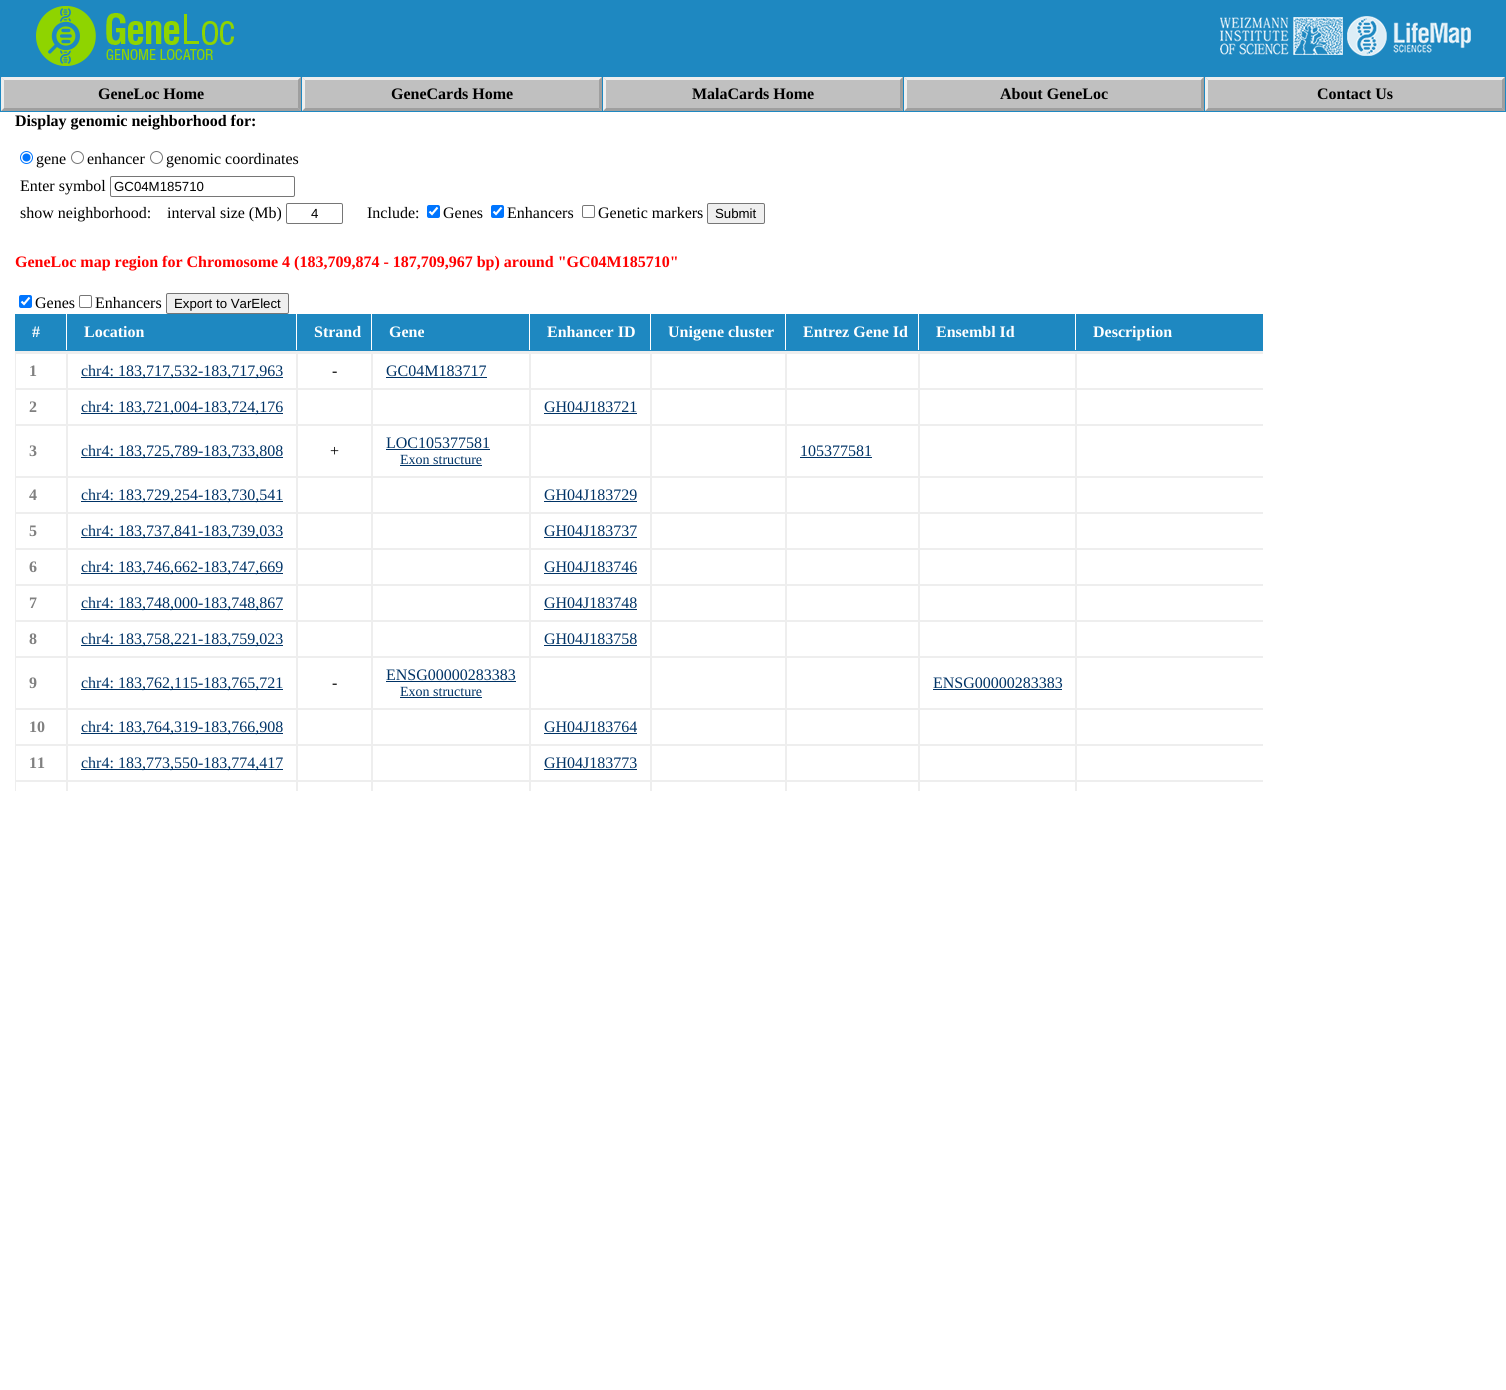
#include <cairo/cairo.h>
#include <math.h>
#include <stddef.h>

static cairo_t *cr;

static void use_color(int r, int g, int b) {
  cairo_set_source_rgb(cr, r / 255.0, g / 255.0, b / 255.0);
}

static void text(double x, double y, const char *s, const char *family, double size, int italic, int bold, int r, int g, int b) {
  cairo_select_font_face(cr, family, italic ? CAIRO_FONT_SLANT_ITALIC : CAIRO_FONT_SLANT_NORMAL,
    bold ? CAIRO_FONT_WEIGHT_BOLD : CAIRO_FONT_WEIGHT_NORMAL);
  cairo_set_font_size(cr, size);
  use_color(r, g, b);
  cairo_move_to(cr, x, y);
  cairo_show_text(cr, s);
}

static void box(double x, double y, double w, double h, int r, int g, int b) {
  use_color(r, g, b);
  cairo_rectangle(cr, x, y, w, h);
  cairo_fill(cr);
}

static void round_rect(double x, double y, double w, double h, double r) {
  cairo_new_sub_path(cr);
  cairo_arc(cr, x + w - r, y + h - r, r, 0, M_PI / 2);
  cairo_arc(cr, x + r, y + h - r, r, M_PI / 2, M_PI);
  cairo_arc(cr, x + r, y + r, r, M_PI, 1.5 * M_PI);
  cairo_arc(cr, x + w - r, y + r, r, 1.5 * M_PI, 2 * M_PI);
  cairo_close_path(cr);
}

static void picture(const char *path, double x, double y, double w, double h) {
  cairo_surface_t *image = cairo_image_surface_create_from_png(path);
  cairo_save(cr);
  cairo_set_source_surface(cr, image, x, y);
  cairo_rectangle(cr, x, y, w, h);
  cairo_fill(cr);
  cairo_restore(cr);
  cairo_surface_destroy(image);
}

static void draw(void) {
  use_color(255, 255, 255);
  cairo_paint(cr);
  box(0, 0, 1506, 112, 30, 136, 193);
  picture("img_01.png", 36, 6, 198, 60);
  picture("img_02.png", 1220, 17, 123, 38);
  picture("img_03.png", 1347, 16, 124, 40);
  box(1, 77, 300, 34, 192, 192, 192);
  use_color(238, 238, 238);
  cairo_new_path(cr);
  cairo_move_to(cr, 1, 77);
  cairo_line_to(cr, 301, 77);
  cairo_line_to(cr, 298, 80);
  cairo_line_to(cr, 4, 80);
  cairo_close_path(cr);
  cairo_fill(cr);
  use_color(159, 159, 159);
  cairo_new_path(cr);
  cairo_move_to(cr, 301, 77);
  cairo_line_to(cr, 301, 111);
  cairo_line_to(cr, 298, 108);
  cairo_line_to(cr, 298, 80);
  cairo_close_path(cr);
  cairo_fill(cr);
  cairo_new_path(cr);
  cairo_move_to(cr, 301, 111);
  cairo_line_to(cr, 1, 111);
  cairo_line_to(cr, 4, 108);
  cairo_line_to(cr, 298, 108);
  cairo_close_path(cr);
  cairo_fill(cr);
  use_color(238, 238, 238);
  cairo_new_path(cr);
  cairo_move_to(cr, 1, 111);
  cairo_line_to(cr, 1, 77);
  cairo_line_to(cr, 4, 80);
  cairo_line_to(cr, 4, 108);
  cairo_close_path(cr);
  cairo_fill(cr);
  box(302, 77, 300, 34, 192, 192, 192);
  use_color(238, 238, 238);
  cairo_new_path(cr);
  cairo_move_to(cr, 302, 77);
  cairo_line_to(cr, 602, 77);
  cairo_line_to(cr, 599, 80);
  cairo_line_to(cr, 305, 80);
  cairo_close_path(cr);
  cairo_fill(cr);
  use_color(159, 159, 159);
  cairo_new_path(cr);
  cairo_move_to(cr, 602, 77);
  cairo_line_to(cr, 602, 111);
  cairo_line_to(cr, 599, 108);
  cairo_line_to(cr, 599, 80);
  cairo_close_path(cr);
  cairo_fill(cr);
  cairo_new_path(cr);
  cairo_move_to(cr, 602, 111);
  cairo_line_to(cr, 302, 111);
  cairo_line_to(cr, 305, 108);
  cairo_line_to(cr, 599, 108);
  cairo_close_path(cr);
  cairo_fill(cr);
  use_color(238, 238, 238);
  cairo_new_path(cr);
  cairo_move_to(cr, 302, 111);
  cairo_line_to(cr, 302, 77);
  cairo_line_to(cr, 305, 80);
  cairo_line_to(cr, 305, 108);
  cairo_close_path(cr);
  cairo_fill(cr);
  box(603, 77, 300, 34, 192, 192, 192);
  use_color(238, 238, 238);
  cairo_new_path(cr);
  cairo_move_to(cr, 603, 77);
  cairo_line_to(cr, 903, 77);
  cairo_line_to(cr, 900, 80);
  cairo_line_to(cr, 606, 80);
  cairo_close_path(cr);
  cairo_fill(cr);
  use_color(159, 159, 159);
  cairo_new_path(cr);
  cairo_move_to(cr, 903, 77);
  cairo_line_to(cr, 903, 111);
  cairo_line_to(cr, 900, 108);
  cairo_line_to(cr, 900, 80);
  cairo_close_path(cr);
  cairo_fill(cr);
  cairo_new_path(cr);
  cairo_move_to(cr, 903, 111);
  cairo_line_to(cr, 603, 111);
  cairo_line_to(cr, 606, 108);
  cairo_line_to(cr, 900, 108);
  cairo_close_path(cr);
  cairo_fill(cr);
  use_color(238, 238, 238);
  cairo_new_path(cr);
  cairo_move_to(cr, 603, 111);
  cairo_line_to(cr, 603, 77);
  cairo_line_to(cr, 606, 80);
  cairo_line_to(cr, 606, 108);
  cairo_close_path(cr);
  cairo_fill(cr);
  box(904, 77, 300, 34, 192, 192, 192);
  use_color(238, 238, 238);
  cairo_new_path(cr);
  cairo_move_to(cr, 904, 77);
  cairo_line_to(cr, 1204, 77);
  cairo_line_to(cr, 1201, 80);
  cairo_line_to(cr, 907, 80);
  cairo_close_path(cr);
  cairo_fill(cr);
  use_color(159, 159, 159);
  cairo_new_path(cr);
  cairo_move_to(cr, 1204, 77);
  cairo_line_to(cr, 1204, 111);
  cairo_line_to(cr, 1201, 108);
  cairo_line_to(cr, 1201, 80);
  cairo_close_path(cr);
  cairo_fill(cr);
  cairo_new_path(cr);
  cairo_move_to(cr, 1204, 111);
  cairo_line_to(cr, 904, 111);
  cairo_line_to(cr, 907, 108);
  cairo_line_to(cr, 1201, 108);
  cairo_close_path(cr);
  cairo_fill(cr);
  use_color(238, 238, 238);
  cairo_new_path(cr);
  cairo_move_to(cr, 904, 111);
  cairo_line_to(cr, 904, 77);
  cairo_line_to(cr, 907, 80);
  cairo_line_to(cr, 907, 108);
  cairo_close_path(cr);
  cairo_fill(cr);
  box(1205, 77, 300, 34, 192, 192, 192);
  use_color(238, 238, 238);
  cairo_new_path(cr);
  cairo_move_to(cr, 1205, 77);
  cairo_line_to(cr, 1505, 77);
  cairo_line_to(cr, 1502, 80);
  cairo_line_to(cr, 1208, 80);
  cairo_close_path(cr);
  cairo_fill(cr);
  use_color(159, 159, 159);
  cairo_new_path(cr);
  cairo_move_to(cr, 1505, 77);
  cairo_line_to(cr, 1505, 111);
  cairo_line_to(cr, 1502, 108);
  cairo_line_to(cr, 1502, 80);
  cairo_close_path(cr);
  cairo_fill(cr);
  cairo_new_path(cr);
  cairo_move_to(cr, 1505, 111);
  cairo_line_to(cr, 1205, 111);
  cairo_line_to(cr, 1208, 108);
  cairo_line_to(cr, 1502, 108);
  cairo_close_path(cr);
  cairo_fill(cr);
  use_color(238, 238, 238);
  cairo_new_path(cr);
  cairo_move_to(cr, 1205, 111);
  cairo_line_to(cr, 1205, 77);
  cairo_line_to(cr, 1208, 80);
  cairo_line_to(cr, 1208, 108);
  cairo_close_path(cr);
  cairo_fill(cr);
  cairo_arc(cr, 26.5, 157.5, 6, 0, 2 * M_PI);
  use_color(0, 117, 255);
  cairo_set_line_width(cr, 1);
  cairo_stroke(cr);
  cairo_arc(cr, 26.5, 157.5, 4, 0, 2 * M_PI);
  cairo_fill(cr);
  cairo_arc(cr, 77.5, 157.5, 6, 0, 2 * M_PI);
  use_color(118, 118, 118);
  cairo_stroke(cr);
  cairo_arc(cr, 156.5, 157.5, 6, 0, 2 * M_PI);
  cairo_stroke(cr);
  round_rect(110.5, 176.5, 184, 20, 1.5);
  cairo_stroke(cr);
  round_rect(286.5, 203.5, 56, 20, 1.5);
  cairo_stroke(cr);
  use_color(0, 117, 255);
  round_rect(427, 205, 13, 13, 2);
  cairo_fill(cr);
  cairo_new_path(cr);
  cairo_move_to(cr, 429.5, 211.5);
  cairo_line_to(cr, 432, 214);
  cairo_line_to(cr, 437.5, 207.5);
  use_color(255, 255, 255);
  cairo_set_line_width(cr, 2.1);
  cairo_stroke(cr);
  use_color(0, 117, 255);
  round_rect(491, 205, 13, 13, 2);
  cairo_fill(cr);
  cairo_new_path(cr);
  cairo_move_to(cr, 493.5, 211.5);
  cairo_line_to(cr, 496, 214);
  cairo_line_to(cr, 501.5, 207.5);
  use_color(255, 255, 255);
  cairo_stroke(cr);
  round_rect(582.5, 205.5, 12, 12, 1.5);
  use_color(118, 118, 118);
  cairo_set_line_width(cr, 1);
  cairo_stroke(cr);
  use_color(239, 239, 239);
  round_rect(707.5, 203.5, 57, 20, 1.5);
  cairo_fill_preserve(cr);
  use_color(118, 118, 118);
  cairo_stroke(cr);
  use_color(0, 117, 255);
  round_rect(19, 295, 13, 13, 2);
  cairo_fill(cr);
  cairo_new_path(cr);
  cairo_move_to(cr, 21.5, 301.5);
  cairo_line_to(cr, 24, 304);
  cairo_line_to(cr, 29.5, 297.5);
  use_color(255, 255, 255);
  cairo_set_line_width(cr, 2.1);
  cairo_stroke(cr);
  round_rect(79.5, 295.5, 12, 12, 1.5);
  use_color(118, 118, 118);
  cairo_set_line_width(cr, 1);
  cairo_stroke(cr);
  use_color(239, 239, 239);
  round_rect(166.5, 293.5, 122, 20, 1.5);
  cairo_fill_preserve(cr);
  use_color(118, 118, 118);
  cairo_stroke(cr);
  box(15, 314, 1248, 37, 30, 136, 193);
  box(15, 351, 1248, 2, 238, 238, 238);
  box(66, 314, 1, 36, 255, 255, 255);
  box(296, 314, 1, 36, 255, 255, 255);
  box(371, 314, 1, 36, 255, 255, 255);
  box(529, 314, 1, 36, 255, 255, 255);
  box(650, 314, 1, 36, 255, 255, 255);
  box(785, 314, 1, 36, 255, 255, 255);
  box(918, 314, 1, 36, 255, 255, 255);
  box(1075, 314, 1, 36, 255, 255, 255);
  cairo_rectangle(cr, 15.5, 353.5, 51, 35);
  use_color(238, 238, 238);
  cairo_stroke(cr);
  cairo_rectangle(cr, 67.5, 353.5, 229, 35);
  cairo_stroke(cr);
  box(81, 377, 202, 1, 0, 51, 102);
  cairo_rectangle(cr, 297.5, 353.5, 74, 35);
  use_color(238, 238, 238);
  cairo_stroke(cr);
  cairo_rectangle(cr, 372.5, 353.5, 157, 35);
  cairo_stroke(cr);
  box(386, 377, 101, 1, 0, 51, 102);
  cairo_rectangle(cr, 530.5, 353.5, 120, 35);
  use_color(238, 238, 238);
  cairo_stroke(cr);
  cairo_rectangle(cr, 651.5, 353.5, 134, 35);
  cairo_stroke(cr);
  cairo_rectangle(cr, 786.5, 353.5, 132, 35);
  cairo_stroke(cr);
  cairo_rectangle(cr, 919.5, 353.5, 156, 35);
  cairo_stroke(cr);
  cairo_save(cr);
  cairo_rectangle(cr, 15, 351, 1248, 440);
  cairo_clip(cr);
  cairo_rectangle(cr, 1076.5, 353.5, 257, 35);
  cairo_stroke(cr);
  cairo_restore(cr);
  cairo_rectangle(cr, 15.5, 389.5, 51, 35);
  cairo_stroke(cr);
  cairo_rectangle(cr, 67.5, 389.5, 229, 35);
  cairo_stroke(cr);
  box(81, 413, 202, 1, 0, 51, 102);
  cairo_rectangle(cr, 297.5, 389.5, 74, 35);
  use_color(238, 238, 238);
  cairo_stroke(cr);
  cairo_rectangle(cr, 372.5, 389.5, 157, 35);
  cairo_stroke(cr);
  cairo_rectangle(cr, 530.5, 389.5, 120, 35);
  cairo_stroke(cr);
  box(544, 413, 93, 1, 0, 51, 102);
  cairo_rectangle(cr, 651.5, 389.5, 134, 35);
  use_color(238, 238, 238);
  cairo_stroke(cr);
  cairo_rectangle(cr, 786.5, 389.5, 132, 35);
  cairo_stroke(cr);
  cairo_rectangle(cr, 919.5, 389.5, 156, 35);
  cairo_stroke(cr);
  cairo_save(cr);
  cairo_rectangle(cr, 15, 351, 1248, 440);
  cairo_clip(cr);
  cairo_rectangle(cr, 1076.5, 389.5, 257, 35);
  cairo_stroke(cr);
  cairo_restore(cr);
  cairo_rectangle(cr, 15.5, 425.5, 51, 51);
  cairo_stroke(cr);
  cairo_rectangle(cr, 67.5, 425.5, 229, 51);
  cairo_stroke(cr);
  box(81, 457, 202, 1, 0, 51, 102);
  cairo_rectangle(cr, 297.5, 425.5, 74, 51);
  use_color(238, 238, 238);
  cairo_stroke(cr);
  cairo_rectangle(cr, 372.5, 425.5, 157, 51);
  cairo_stroke(cr);
  box(386, 449, 104, 1, 0, 51, 102);
  box(400, 465, 82, 1, 0, 51, 102);
  cairo_rectangle(cr, 530.5, 425.5, 120, 51);
  use_color(238, 238, 238);
  cairo_stroke(cr);
  cairo_rectangle(cr, 651.5, 425.5, 134, 51);
  cairo_stroke(cr);
  cairo_rectangle(cr, 786.5, 425.5, 132, 51);
  cairo_stroke(cr);
  box(800, 457, 72, 1, 0, 51, 102);
  cairo_rectangle(cr, 919.5, 425.5, 156, 51);
  use_color(238, 238, 238);
  cairo_stroke(cr);
  cairo_save(cr);
  cairo_rectangle(cr, 15, 351, 1248, 440);
  cairo_clip(cr);
  cairo_rectangle(cr, 1076.5, 425.5, 257, 51);
  cairo_stroke(cr);
  cairo_restore(cr);
  cairo_rectangle(cr, 15.5, 477.5, 51, 35);
  cairo_stroke(cr);
  cairo_rectangle(cr, 67.5, 477.5, 229, 35);
  cairo_stroke(cr);
  box(81, 501, 202, 1, 0, 51, 102);
  cairo_rectangle(cr, 297.5, 477.5, 74, 35);
  use_color(238, 238, 238);
  cairo_stroke(cr);
  cairo_rectangle(cr, 372.5, 477.5, 157, 35);
  cairo_stroke(cr);
  cairo_rectangle(cr, 530.5, 477.5, 120, 35);
  cairo_stroke(cr);
  box(544, 501, 93, 1, 0, 51, 102);
  cairo_rectangle(cr, 651.5, 477.5, 134, 35);
  use_color(238, 238, 238);
  cairo_stroke(cr);
  cairo_rectangle(cr, 786.5, 477.5, 132, 35);
  cairo_stroke(cr);
  cairo_rectangle(cr, 919.5, 477.5, 156, 35);
  cairo_stroke(cr);
  cairo_save(cr);
  cairo_rectangle(cr, 15, 351, 1248, 440);
  cairo_clip(cr);
  cairo_rectangle(cr, 1076.5, 477.5, 257, 35);
  cairo_stroke(cr);
  cairo_restore(cr);
  cairo_rectangle(cr, 15.5, 513.5, 51, 35);
  cairo_stroke(cr);
  cairo_rectangle(cr, 67.5, 513.5, 229, 35);
  cairo_stroke(cr);
  box(81, 537, 202, 1, 0, 51, 102);
  cairo_rectangle(cr, 297.5, 513.5, 74, 35);
  use_color(238, 238, 238);
  cairo_stroke(cr);
  cairo_rectangle(cr, 372.5, 513.5, 157, 35);
  cairo_stroke(cr);
  cairo_rectangle(cr, 530.5, 513.5, 120, 35);
  cairo_stroke(cr);
  box(544, 537, 93, 1, 0, 51, 102);
  cairo_rectangle(cr, 651.5, 513.5, 134, 35);
  use_color(238, 238, 238);
  cairo_stroke(cr);
  cairo_rectangle(cr, 786.5, 513.5, 132, 35);
  cairo_stroke(cr);
  cairo_rectangle(cr, 919.5, 513.5, 156, 35);
  cairo_stroke(cr);
  cairo_save(cr);
  cairo_rectangle(cr, 15, 351, 1248, 440);
  cairo_clip(cr);
  cairo_rectangle(cr, 1076.5, 513.5, 257, 35);
  cairo_stroke(cr);
  cairo_restore(cr);
  cairo_rectangle(cr, 15.5, 549.5, 51, 35);
  cairo_stroke(cr);
  cairo_rectangle(cr, 67.5, 549.5, 229, 35);
  cairo_stroke(cr);
  box(81, 573, 202, 1, 0, 51, 102);
  cairo_rectangle(cr, 297.5, 549.5, 74, 35);
  use_color(238, 238, 238);
  cairo_stroke(cr);
  cairo_rectangle(cr, 372.5, 549.5, 157, 35);
  cairo_stroke(cr);
  cairo_rectangle(cr, 530.5, 549.5, 120, 35);
  cairo_stroke(cr);
  box(544, 573, 93, 1, 0, 51, 102);
  cairo_rectangle(cr, 651.5, 549.5, 134, 35);
  use_color(238, 238, 238);
  cairo_stroke(cr);
  cairo_rectangle(cr, 786.5, 549.5, 132, 35);
  cairo_stroke(cr);
  cairo_rectangle(cr, 919.5, 549.5, 156, 35);
  cairo_stroke(cr);
  cairo_save(cr);
  cairo_rectangle(cr, 15, 351, 1248, 440);
  cairo_clip(cr);
  cairo_rectangle(cr, 1076.5, 549.5, 257, 35);
  cairo_stroke(cr);
  cairo_restore(cr);
  cairo_rectangle(cr, 15.5, 585.5, 51, 35);
  cairo_stroke(cr);
  cairo_rectangle(cr, 67.5, 585.5, 229, 35);
  cairo_stroke(cr);
  box(81, 609, 202, 1, 0, 51, 102);
  cairo_rectangle(cr, 297.5, 585.5, 74, 35);
  use_color(238, 238, 238);
  cairo_stroke(cr);
  cairo_rectangle(cr, 372.5, 585.5, 157, 35);
  cairo_stroke(cr);
  cairo_rectangle(cr, 530.5, 585.5, 120, 35);
  cairo_stroke(cr);
  box(544, 609, 93, 1, 0, 51, 102);
  cairo_rectangle(cr, 651.5, 585.5, 134, 35);
  use_color(238, 238, 238);
  cairo_stroke(cr);
  cairo_rectangle(cr, 786.5, 585.5, 132, 35);
  cairo_stroke(cr);
  cairo_rectangle(cr, 919.5, 585.5, 156, 35);
  cairo_stroke(cr);
  cairo_save(cr);
  cairo_rectangle(cr, 15, 351, 1248, 440);
  cairo_clip(cr);
  cairo_rectangle(cr, 1076.5, 585.5, 257, 35);
  cairo_stroke(cr);
  cairo_restore(cr);
  cairo_rectangle(cr, 15.5, 621.5, 51, 35);
  cairo_stroke(cr);
  cairo_rectangle(cr, 67.5, 621.5, 229, 35);
  cairo_stroke(cr);
  box(81, 645, 202, 1, 0, 51, 102);
  cairo_rectangle(cr, 297.5, 621.5, 74, 35);
  use_color(238, 238, 238);
  cairo_stroke(cr);
  cairo_rectangle(cr, 372.5, 621.5, 157, 35);
  cairo_stroke(cr);
  cairo_rectangle(cr, 530.5, 621.5, 120, 35);
  cairo_stroke(cr);
  box(544, 645, 93, 1, 0, 51, 102);
  cairo_rectangle(cr, 651.5, 621.5, 134, 35);
  use_color(238, 238, 238);
  cairo_stroke(cr);
  cairo_rectangle(cr, 786.5, 621.5, 132, 35);
  cairo_stroke(cr);
  cairo_rectangle(cr, 919.5, 621.5, 156, 35);
  cairo_stroke(cr);
  cairo_save(cr);
  cairo_rectangle(cr, 15, 351, 1248, 440);
  cairo_clip(cr);
  cairo_rectangle(cr, 1076.5, 621.5, 257, 35);
  cairo_stroke(cr);
  cairo_restore(cr);
  cairo_rectangle(cr, 15.5, 657.5, 51, 51);
  cairo_stroke(cr);
  cairo_rectangle(cr, 67.5, 657.5, 229, 51);
  cairo_stroke(cr);
  box(81, 689, 202, 1, 0, 51, 102);
  cairo_rectangle(cr, 297.5, 657.5, 74, 51);
  use_color(238, 238, 238);
  cairo_stroke(cr);
  cairo_rectangle(cr, 372.5, 657.5, 157, 51);
  cairo_stroke(cr);
  box(386, 681, 130, 1, 0, 51, 102);
  box(400, 697, 82, 1, 0, 51, 102);
  cairo_rectangle(cr, 530.5, 657.5, 120, 51);
  use_color(238, 238, 238);
  cairo_stroke(cr);
  cairo_rectangle(cr, 651.5, 657.5, 134, 51);
  cairo_stroke(cr);
  cairo_rectangle(cr, 786.5, 657.5, 132, 51);
  cairo_stroke(cr);
  cairo_rectangle(cr, 919.5, 657.5, 156, 51);
  cairo_stroke(cr);
  box(933, 689, 129, 1, 0, 51, 102);
  cairo_save(cr);
  cairo_rectangle(cr, 15, 351, 1248, 440);
  cairo_clip(cr);
  cairo_rectangle(cr, 1076.5, 657.5, 257, 51);
  use_color(238, 238, 238);
  cairo_stroke(cr);
  cairo_restore(cr);
  cairo_rectangle(cr, 15.5, 709.5, 51, 35);
  use_color(238, 238, 238);
  cairo_stroke(cr);
  cairo_rectangle(cr, 67.5, 709.5, 229, 35);
  cairo_stroke(cr);
  box(81, 733, 202, 1, 0, 51, 102);
  cairo_rectangle(cr, 297.5, 709.5, 74, 35);
  use_color(238, 238, 238);
  cairo_stroke(cr);
  cairo_rectangle(cr, 372.5, 709.5, 157, 35);
  cairo_stroke(cr);
  cairo_rectangle(cr, 530.5, 709.5, 120, 35);
  cairo_stroke(cr);
  box(544, 733, 93, 1, 0, 51, 102);
  cairo_rectangle(cr, 651.5, 709.5, 134, 35);
  use_color(238, 238, 238);
  cairo_stroke(cr);
  cairo_rectangle(cr, 786.5, 709.5, 132, 35);
  cairo_stroke(cr);
  cairo_rectangle(cr, 919.5, 709.5, 156, 35);
  cairo_stroke(cr);
  cairo_save(cr);
  cairo_rectangle(cr, 15, 351, 1248, 440);
  cairo_clip(cr);
  cairo_rectangle(cr, 1076.5, 709.5, 257, 35);
  cairo_stroke(cr);
  cairo_restore(cr);
  cairo_rectangle(cr, 15.5, 745.5, 51, 35);
  cairo_stroke(cr);
  cairo_rectangle(cr, 67.5, 745.5, 229, 35);
  cairo_stroke(cr);
  box(81, 769, 202, 1, 0, 51, 102);
  cairo_rectangle(cr, 297.5, 745.5, 74, 35);
  use_color(238, 238, 238);
  cairo_stroke(cr);
  cairo_rectangle(cr, 372.5, 745.5, 157, 35);
  cairo_stroke(cr);
  cairo_rectangle(cr, 530.5, 745.5, 120, 35);
  cairo_stroke(cr);
  box(544, 769, 93, 1, 0, 51, 102);
  cairo_rectangle(cr, 651.5, 745.5, 134, 35);
  use_color(238, 238, 238);
  cairo_stroke(cr);
  cairo_rectangle(cr, 786.5, 745.5, 132, 35);
  cairo_stroke(cr);
  cairo_rectangle(cr, 919.5, 745.5, 156, 35);
  cairo_stroke(cr);
  cairo_save(cr);
  cairo_rectangle(cr, 15, 351, 1248, 440);
  cairo_clip(cr);
  cairo_rectangle(cr, 1076.5, 745.5, 257, 35);
  cairo_stroke(cr);
  cairo_rectangle(cr, 15.5, 781.5, 51, 35);
  cairo_stroke(cr);
  cairo_rectangle(cr, 67.5, 781.5, 229, 35);
  cairo_stroke(cr);
  cairo_rectangle(cr, 297.5, 781.5, 74, 35);
  cairo_stroke(cr);
  cairo_rectangle(cr, 372.5, 781.5, 157, 35);
  cairo_stroke(cr);
  cairo_rectangle(cr, 530.5, 781.5, 120, 35);
  cairo_stroke(cr);
  cairo_rectangle(cr, 651.5, 781.5, 134, 35);
  cairo_stroke(cr);
  cairo_rectangle(cr, 786.5, 781.5, 132, 35);
  cairo_stroke(cr);
  cairo_rectangle(cr, 919.5, 781.5, 156, 35);
  cairo_stroke(cr);
  cairo_rectangle(cr, 1076.5, 781.5, 257, 35);
  cairo_stroke(cr);
  cairo_restore(cr);
  text(98, 99, "GeneLoc Home", "Liberation Serif", 16, 0, 1, 0, 0, 0);
  text(391, 99, "GeneCards Home", "Liberation Serif", 16, 0, 1, 0, 0, 0);
  text(692, 99, "MalaCards Home", "Liberation Serif", 16, 0, 1, 0, 0, 0);
  text(1000, 99, "About GeneLoc", "Liberation Serif", 16, 0, 1, 0, 0, 0);
  text(1317, 99, "Contact Us", "Liberation Serif", 16, 0, 1, 0, 0, 0);
  text(15, 126, "Display genomic neighborhood for:", "Liberation Serif", 16, 0, 1, 0, 0, 0);
  text(36, 164, "gene", "Liberation Serif", 16, 0, 0, 0, 0, 0);
  text(87, 164, "enhancer", "Liberation Serif", 16, 0, 0, 0, 0, 0);
  text(166, 164, "genomic coordinates", "Liberation Serif", 16, 0, 0, 0, 0, 0);
  text(20, 191, "Enter symbol", "Liberation Serif", 16, 0, 0, 0, 0, 0);
  text(114, 191, "GC04M185710", "Liberation Sans", 13.25, 0, 0, 0, 0, 0);
  text(20, 218, "show neighborhood:    interval size (Mb)", "Liberation Serif", 16, 0, 0, 0, 0, 0);
  text(311, 218, "4", "Liberation Sans", 13.25, 0, 0, 0, 0, 0);
  text(367, 218, "Include:", "Liberation Serif", 16, 0, 0, 0, 0, 0);
  text(443, 218, "Genes", "Liberation Serif", 16, 0, 0, 0, 0, 0);
  text(507, 218, "Enhancers", "Liberation Serif", 16, 0, 0, 0, 0, 0);
  text(598, 218, "Genetic markers", "Liberation Serif", 16, 0, 0, 0, 0, 0);
  text(715, 218, "Submit", "Liberation Sans", 13.25, 0, 0, 0, 0, 0);
  text(15, 267, "GeneLoc map region for Chromosome 4 (183,709,874 - 187,709,967 bp) around \"GC04M185710\"", "Liberation Serif", 16, 0, 1, 255, 0, 0);
  text(35, 308, "Genes", "Liberation Serif", 16, 0, 0, 0, 0, 0);
  text(95, 308, "Enhancers", "Liberation Serif", 16, 0, 0, 0, 0, 0);
  text(174, 308, "Export to VarElect", "Liberation Sans", 13.25, 0, 0, 0, 0, 0);
  text(32, 337, "#", "Liberation Serif", 16, 0, 1, 255, 255, 255);
  text(84, 337, "Location", "Liberation Serif", 16, 0, 1, 255, 255, 255);
  text(314, 337, "Strand", "Liberation Serif", 16, 0, 1, 255, 255, 255);
  text(389, 337, "Gene", "Liberation Serif", 16, 0, 1, 255, 255, 255);
  text(547, 337, "Enhancer ID", "Liberation Serif", 16, 0, 1, 255, 255, 255);
  text(668, 337, "Unigene cluster", "Liberation Serif", 16, 0, 1, 255, 255, 255);
  text(803, 337, "Entrez Gene Id", "Liberation Serif", 16, 0, 1, 255, 255, 255);
  text(936, 337, "Ensembl Id", "Liberation Serif", 16, 0, 1, 255, 255, 255);
  text(1093, 337, "Description", "Liberation Serif", 16, 0, 1, 255, 255, 255);
  text(29, 376, "1", "Liberation Serif", 16, 0, 1, 128, 128, 128);
  text(81, 376, "chr4: 183,717,532-183,717,963", "Liberation Serif", 16, 0, 0, 0, 51, 102);
  text(332, 376, "-", "Liberation Serif", 16, 0, 0, 0, 0, 0);
  text(386, 376, "GC04M183717", "Liberation Serif", 16, 0, 0, 0, 51, 102);
  text(29, 412, "2", "Liberation Serif", 16, 0, 1, 128, 128, 128);
  text(81, 412, "chr4: 183,721,004-183,724,176", "Liberation Serif", 16, 0, 0, 0, 51, 102);
  text(544, 412, "GH04J183721", "Liberation Serif", 16, 0, 0, 0, 51, 102);
  text(29, 456, "3", "Liberation Serif", 16, 0, 1, 128, 128, 128);
  text(81, 456, "chr4: 183,725,789-183,733,808", "Liberation Serif", 16, 0, 0, 0, 51, 102);
  text(330, 456, "+", "Liberation Serif", 16, 0, 0, 0, 0, 0);
  text(386, 448, "LOC105377581", "Liberation Serif", 16, 0, 0, 0, 51, 102);
  text(400, 464, "Exon structure", "Liberation Serif", 14, 0, 0, 0, 51, 102);
  text(800, 456, "105377581", "Liberation Serif", 16, 0, 0, 0, 51, 102);
  text(29, 500, "4", "Liberation Serif", 16, 0, 1, 128, 128, 128);
  text(81, 500, "chr4: 183,729,254-183,730,541", "Liberation Serif", 16, 0, 0, 0, 51, 102);
  text(544, 500, "GH04J183729", "Liberation Serif", 16, 0, 0, 0, 51, 102);
  text(29, 536, "5", "Liberation Serif", 16, 0, 1, 128, 128, 128);
  text(81, 536, "chr4: 183,737,841-183,739,033", "Liberation Serif", 16, 0, 0, 0, 51, 102);
  text(544, 536, "GH04J183737", "Liberation Serif", 16, 0, 0, 0, 51, 102);
  text(29, 572, "6", "Liberation Serif", 16, 0, 1, 128, 128, 128);
  text(81, 572, "chr4: 183,746,662-183,747,669", "Liberation Serif", 16, 0, 0, 0, 51, 102);
  text(544, 572, "GH04J183746", "Liberation Serif", 16, 0, 0, 0, 51, 102);
  text(29, 608, "7", "Liberation Serif", 16, 0, 1, 128, 128, 128);
  text(81, 608, "chr4: 183,748,000-183,748,867", "Liberation Serif", 16, 0, 0, 0, 51, 102);
  text(544, 608, "GH04J183748", "Liberation Serif", 16, 0, 0, 0, 51, 102);
  text(29, 644, "8", "Liberation Serif", 16, 0, 1, 128, 128, 128);
  text(81, 644, "chr4: 183,758,221-183,759,023", "Liberation Serif", 16, 0, 0, 0, 51, 102);
  text(544, 644, "GH04J183758", "Liberation Serif", 16, 0, 0, 0, 51, 102);
  text(29, 688, "9", "Liberation Serif", 16, 0, 1, 128, 128, 128);
  text(81, 688, "chr4: 183,762,115-183,765,721", "Liberation Serif", 16, 0, 0, 0, 51, 102);
  text(332, 688, "-", "Liberation Serif", 16, 0, 0, 0, 0, 0);
  text(386, 680, "ENSG00000283383", "Liberation Serif", 16, 0, 0, 0, 51, 102);
  text(400, 696, "Exon structure", "Liberation Serif", 14, 0, 0, 0, 51, 102);
  text(933, 688, "ENSG00000283383", "Liberation Serif", 16, 0, 0, 0, 51, 102);
  text(29, 732, "10", "Liberation Serif", 16, 0, 1, 128, 128, 128);
  text(81, 732, "chr4: 183,764,319-183,766,908", "Liberation Serif", 16, 0, 0, 0, 51, 102);
  text(544, 732, "GH04J183764", "Liberation Serif", 16, 0, 0, 0, 51, 102);
  text(29, 768, "11", "Liberation Serif", 16, 0, 1, 128, 128, 128);
  text(81, 768, "chr4: 183,773,550-183,774,417", "Liberation Serif", 16, 0, 0, 0, 51, 102);
  text(544, 768, "GH04J183773", "Liberation Serif", 16, 0, 0, 0, 51, 102);
}

int main(void) {
  cairo_surface_t *surface = cairo_image_surface_create(CAIRO_FORMAT_RGB24, 1506, 1390);
  cr = cairo_create(surface);
  cairo_font_options_t *options = cairo_font_options_create();
  cairo_font_options_set_hint_metrics(options, CAIRO_HINT_METRICS_OFF);
  cairo_font_options_set_hint_style(options, CAIRO_HINT_STYLE_NONE);
  cairo_set_font_options(cr, options);
  cairo_set_miter_limit(cr, 4);
  draw();
  cairo_surface_write_to_png(surface, "out.png");
  cairo_font_options_destroy(options);
  cairo_destroy(cr);
  cairo_surface_destroy(surface);
  return 0;
}
